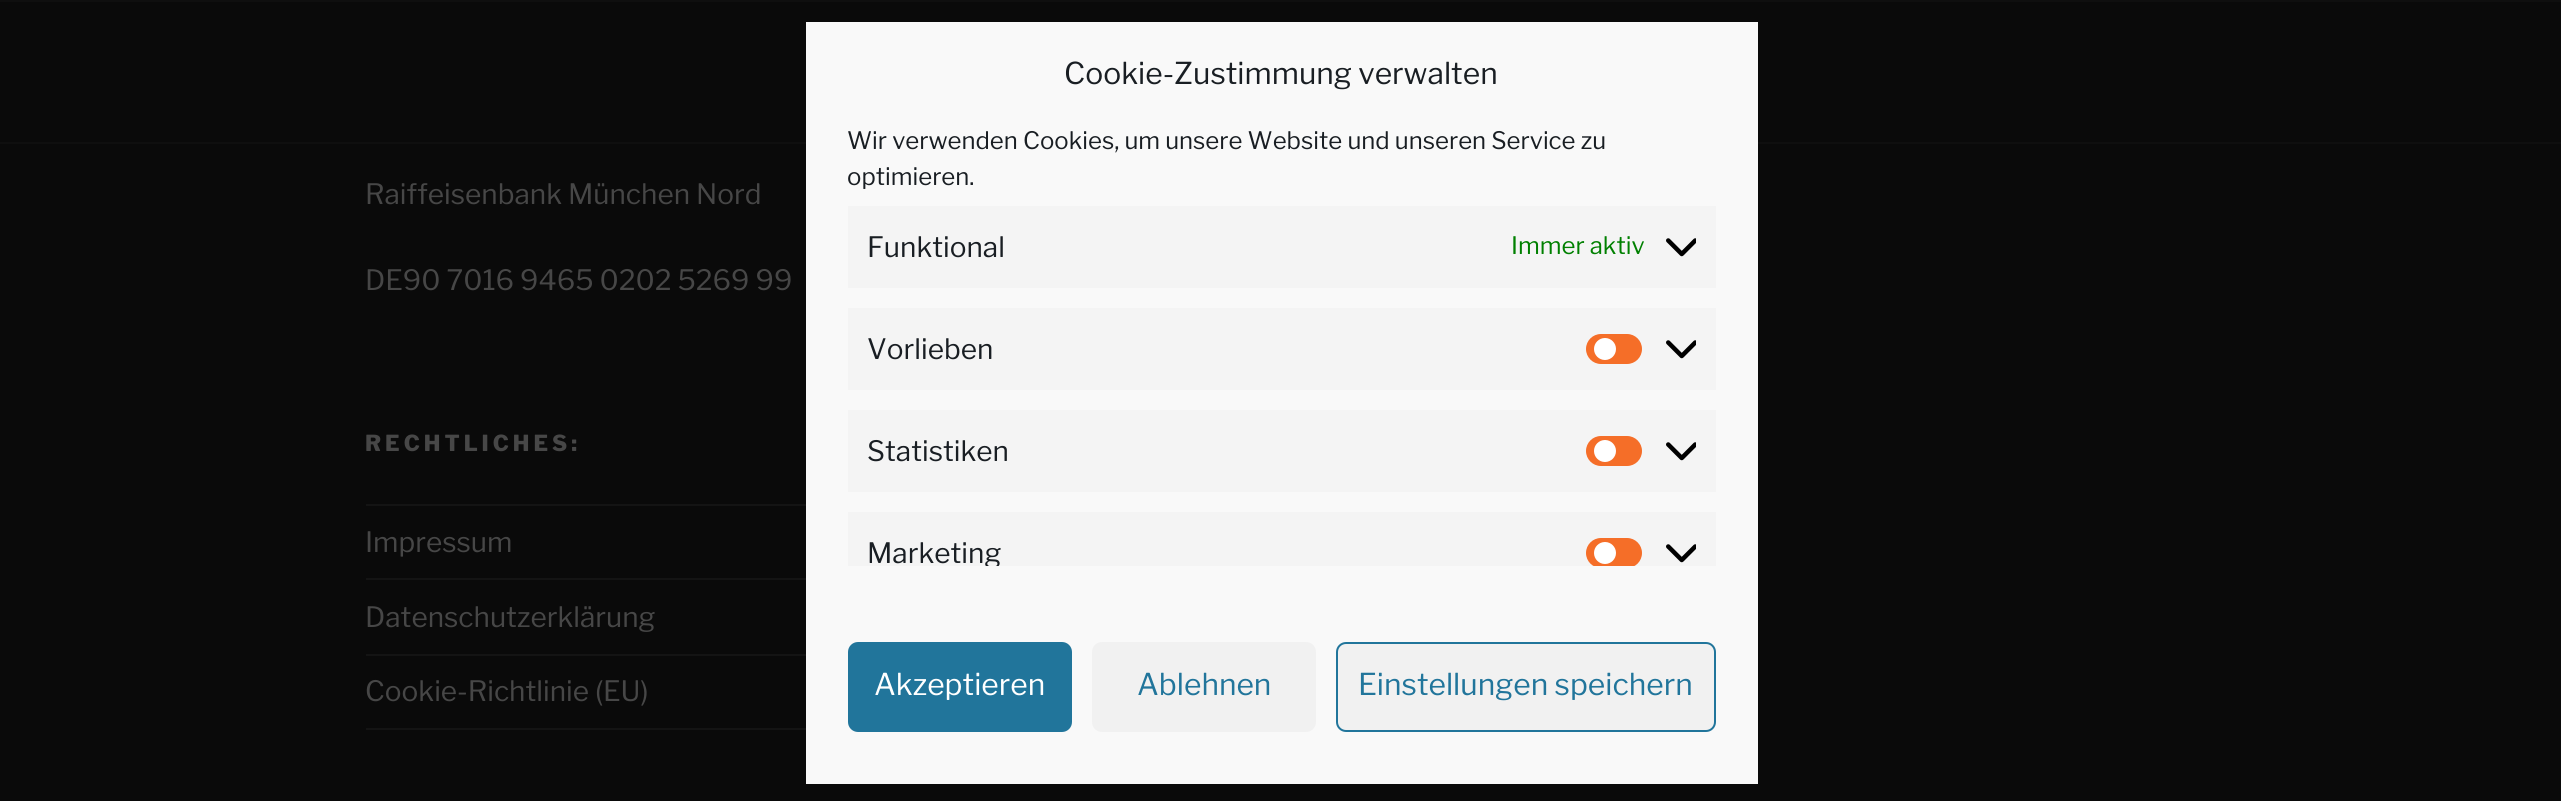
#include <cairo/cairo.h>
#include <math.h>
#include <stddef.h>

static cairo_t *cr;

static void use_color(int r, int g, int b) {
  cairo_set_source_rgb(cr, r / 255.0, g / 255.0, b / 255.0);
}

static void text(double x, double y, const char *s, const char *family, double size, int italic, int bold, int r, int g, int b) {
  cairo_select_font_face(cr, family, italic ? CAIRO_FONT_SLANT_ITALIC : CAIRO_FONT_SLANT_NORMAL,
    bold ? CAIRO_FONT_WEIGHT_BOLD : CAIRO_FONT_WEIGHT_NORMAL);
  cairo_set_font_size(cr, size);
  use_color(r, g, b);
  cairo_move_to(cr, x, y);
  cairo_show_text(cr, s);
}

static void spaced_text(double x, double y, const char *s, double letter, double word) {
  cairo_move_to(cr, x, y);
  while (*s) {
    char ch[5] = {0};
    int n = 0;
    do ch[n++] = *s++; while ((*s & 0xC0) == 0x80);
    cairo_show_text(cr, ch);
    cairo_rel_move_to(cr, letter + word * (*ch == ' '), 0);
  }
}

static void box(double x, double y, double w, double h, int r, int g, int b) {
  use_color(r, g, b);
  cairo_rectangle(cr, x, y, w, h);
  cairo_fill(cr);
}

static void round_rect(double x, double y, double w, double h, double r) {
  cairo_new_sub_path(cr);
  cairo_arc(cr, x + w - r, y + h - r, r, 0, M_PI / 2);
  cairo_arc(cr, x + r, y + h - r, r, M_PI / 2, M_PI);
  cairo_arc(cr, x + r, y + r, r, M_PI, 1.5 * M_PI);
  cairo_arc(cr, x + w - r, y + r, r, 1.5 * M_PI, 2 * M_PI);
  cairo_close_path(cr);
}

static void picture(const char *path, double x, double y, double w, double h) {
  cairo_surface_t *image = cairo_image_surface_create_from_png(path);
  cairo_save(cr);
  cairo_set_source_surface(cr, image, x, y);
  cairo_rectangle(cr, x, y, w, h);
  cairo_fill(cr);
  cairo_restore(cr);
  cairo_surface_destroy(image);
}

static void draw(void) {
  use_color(10, 10, 10);
  cairo_paint(cr);
  box(0, 0, 2561, 2, 15, 15, 15);
  box(0, 142, 2561, 2, 15, 15, 15);
  box(366, 504, 440, 2, 20, 20, 20);
  box(366, 578, 440, 2, 20, 20, 20);
  box(366, 654, 440, 2, 20, 20, 20);
  box(366, 728, 440, 2, 20, 20, 20);
  box(806, 22, 952, 762, 249, 249, 249);
  box(848, 206, 868, 82, 244, 244, 244);
  picture("img_01.png", 1666, 238, 30, 19);
  box(848, 308, 868, 82, 244, 244, 244);
  use_color(245, 110, 40);
  round_rect(1586, 334, 56, 30, 15);
  cairo_fill(cr);
  use_color(255, 255, 255);
  cairo_arc(cr, 1605, 349, 11, 0, 2 * M_PI);
  cairo_fill(cr);
  picture("img_01.png", 1666, 340, 30, 19);
  box(848, 410, 868, 82, 244, 244, 244);
  use_color(245, 110, 40);
  round_rect(1586, 436, 56, 30, 15);
  cairo_fill(cr);
  use_color(255, 255, 255);
  cairo_arc(cr, 1605, 451, 11, 0, 2 * M_PI);
  cairo_fill(cr);
  picture("img_01.png", 1666, 442, 30, 19);
  box(848, 512, 868, 54, 244, 244, 244);
  cairo_save(cr);
  cairo_rectangle(cr, 848, 124, 868, 442);
  cairo_clip(cr);
  use_color(245, 110, 40);
  round_rect(1586, 538, 56, 30, 15);
  cairo_fill(cr);
  cairo_restore(cr);
  use_color(255, 255, 255);
  cairo_arc(cr, 1605, 553, 11, 0, 2 * M_PI);
  cairo_fill(cr);
  picture("img_01.png", 1666, 544, 30, 19);
  use_color(33, 117, 155);
  round_rect(849, 643, 222, 88, 9);
  cairo_fill_preserve(cr);
  cairo_stroke(cr);
  use_color(241, 241, 241);
  round_rect(1092, 642, 224, 90, 10);
  cairo_fill(cr);
  round_rect(1337, 643, 378, 88, 9);
  cairo_fill_preserve(cr);
  use_color(33, 117, 155);
  cairo_stroke(cr);
  text(365, 204, "Raiffeisenbank München Nord", "Libre Franklin Thin", 28, 0, 0, 71, 71, 71);
  text(365, 290, "DE90 7016 9465 0202 5269 99", "Libre Franklin Thin", 28, 0, 0, 71, 71, 71);
  cairo_select_font_face(cr, "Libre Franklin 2 Thin", CAIRO_FONT_SLANT_NORMAL, CAIRO_FONT_WEIGHT_NORMAL);
  cairo_set_font_size(cr, 22);
  spaced_text(365, 451, "RECHTLICHES:", 4, 0);
  text(365, 552, "Impressum", "Libre Franklin Thin", 28, 0, 0, 71, 71, 71);
  text(365, 627, "Datenschutzerklärung", "Libre Franklin Thin", 28, 0, 0, 71, 71, 71);
  text(365, 701, "Cookie-Richtlinie (EU)", "Libre Franklin Thin", 28, 0, 0, 71, 71, 71);
  text(1064, 84, "Cookie-Zustimmung verwalten", "Libre Franklin Thin", 30, 0, 0, 25, 30, 35);
  text(847, 149, "Wir verwenden Cookies, um unsere Website und unseren Service zu", "Libre Franklin Thin", 24, 0, 0, 25, 30, 35);
  text(847, 185, "optimieren.", "Libre Franklin Thin", 24, 0, 0, 25, 30, 35);
  text(867, 257, "Funktional", "Libre Franklin Thin", 28, 0, 0, 25, 30, 35);
  text(1511, 254, "Immer aktiv", "Libre Franklin Thin", 24, 0, 0, 0, 128, 0);
  text(867, 359, "Vorlieben", "Libre Franklin Thin", 28, 0, 0, 25, 30, 35);
  text(867, 461, "Statistiken", "Libre Franklin Thin", 28, 0, 0, 25, 30, 35);
  cairo_save(cr);
  cairo_rectangle(cr, 848, 124, 868, 442);
  cairo_clip(cr);
  text(867, 563, "Marketing", "Libre Franklin Thin", 28, 0, 0, 25, 30, 35);
  cairo_restore(cr);
  text(874, 695, "Akzeptieren", "Libre Franklin Thin", 30, 0, 0, 255, 255, 255);
  text(1137, 695, "Ablehnen", "Libre Franklin Thin", 30, 0, 0, 33, 117, 155);
  text(1358, 695, "Einstellungen speichern", "Libre Franklin Thin", 30, 0, 0, 33, 117, 155);
}

int main(void) {
  cairo_surface_t *surface = cairo_image_surface_create(CAIRO_FORMAT_RGB24, 2561, 801);
  cr = cairo_create(surface);
  cairo_font_options_t *options = cairo_font_options_create();
  cairo_font_options_set_hint_metrics(options, CAIRO_HINT_METRICS_OFF);
  cairo_font_options_set_hint_style(options, CAIRO_HINT_STYLE_NONE);
  cairo_set_font_options(cr, options);
  cairo_set_miter_limit(cr, 4);
  draw();
  cairo_surface_write_to_png(surface, "out.png");
  cairo_font_options_destroy(options);
  cairo_destroy(cr);
  cairo_surface_destroy(surface);
  return 0;
}
